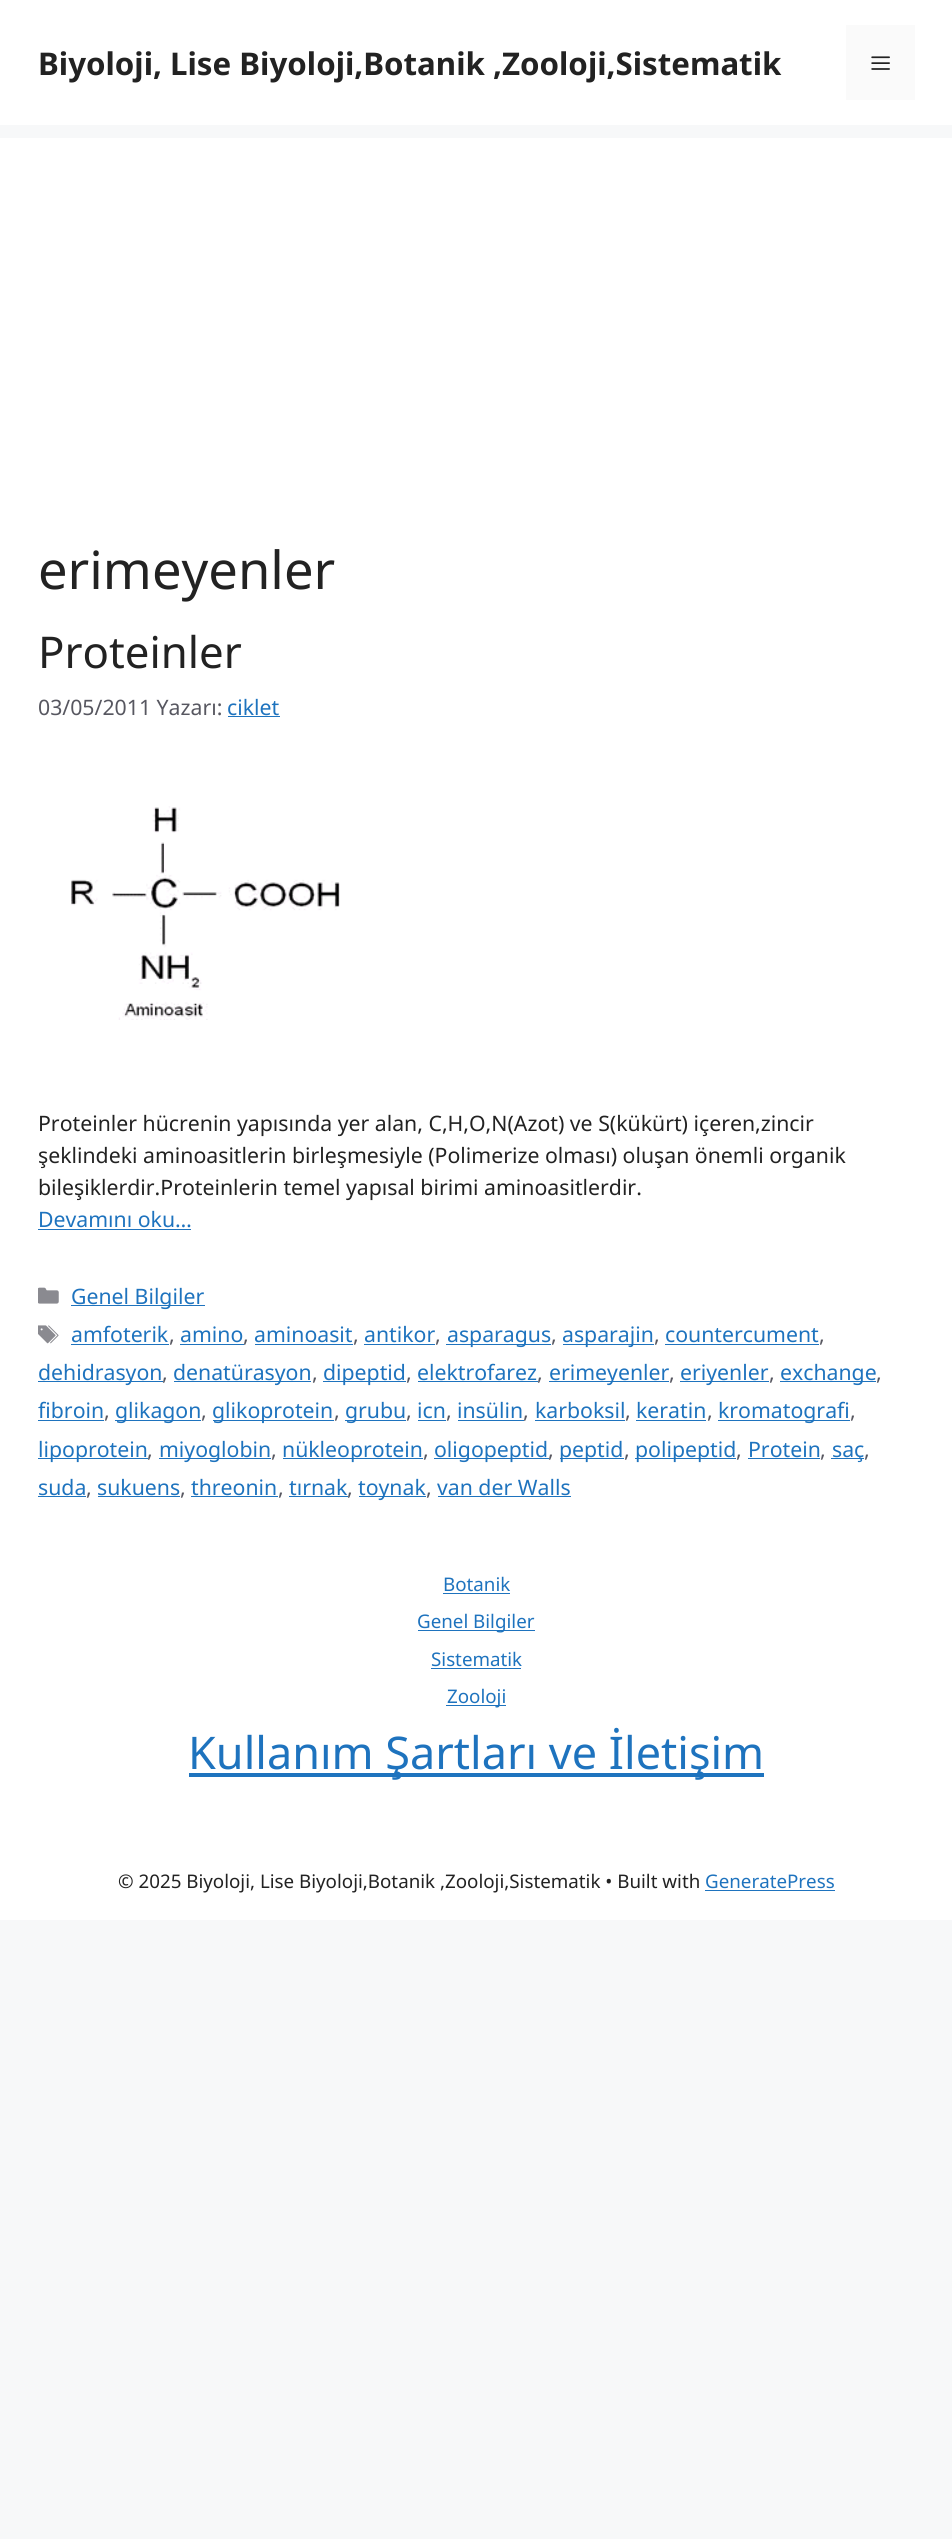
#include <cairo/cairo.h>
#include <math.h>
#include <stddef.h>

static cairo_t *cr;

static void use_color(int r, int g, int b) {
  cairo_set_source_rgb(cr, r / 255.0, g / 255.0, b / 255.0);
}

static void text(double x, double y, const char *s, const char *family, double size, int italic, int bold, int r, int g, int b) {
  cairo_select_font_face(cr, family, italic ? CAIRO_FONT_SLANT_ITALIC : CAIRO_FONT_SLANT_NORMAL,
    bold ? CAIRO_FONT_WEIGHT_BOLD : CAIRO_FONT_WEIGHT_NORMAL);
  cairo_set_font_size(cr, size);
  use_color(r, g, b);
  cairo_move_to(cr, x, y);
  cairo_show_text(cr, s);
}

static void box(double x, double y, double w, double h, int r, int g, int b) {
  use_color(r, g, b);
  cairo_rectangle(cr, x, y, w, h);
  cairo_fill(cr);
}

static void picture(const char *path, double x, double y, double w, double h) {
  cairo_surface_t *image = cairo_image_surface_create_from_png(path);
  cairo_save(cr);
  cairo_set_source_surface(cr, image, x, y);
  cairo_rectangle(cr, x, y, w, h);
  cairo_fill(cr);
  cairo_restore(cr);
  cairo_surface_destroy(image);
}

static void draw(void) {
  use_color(247, 248, 249);
  cairo_paint(cr);
  box(0, 0, 952, 125, 255, 255, 255);
  box(846, 25, 69, 75, 250, 250, 250);
  picture("img_01.png", 871, 56, 19, 14);
  box(0, 138, 952, 1782, 255, 255, 255);
  box(228, 716, 52, 1, 30, 115, 190);
  picture("img_02.png", 71, 806, 269, 214);
  box(38, 1229, 153, 1, 30, 115, 190);
  picture("img_03.png", 38, 1287, 21, 17);
  box(71, 1305, 134, 1, 30, 115, 190);
  picture("img_04.png", 38, 1325, 21, 19);
  box(71, 1344, 98, 1, 30, 115, 190);
  box(180, 1344, 64, 1, 30, 115, 190);
  box(255, 1344, 98, 1, 30, 115, 190);
  box(364, 1344, 71, 1, 30, 115, 190);
  box(446, 1344, 105, 1, 30, 115, 190);
  box(563, 1344, 91, 1, 30, 115, 190);
  box(665, 1344, 154, 1, 30, 115, 190);
  box(38, 1381, 125, 1, 30, 115, 190);
  box(174, 1381, 137, 1, 30, 115, 190);
  box(323, 1381, 83, 1, 30, 115, 190);
  box(418, 1381, 120, 1, 30, 115, 190);
  box(549, 1381, 120, 1, 30, 115, 190);
  box(680, 1381, 89, 1, 30, 115, 190);
  box(780, 1381, 96, 1, 30, 115, 190);
  box(38, 1420, 66, 1, 30, 115, 190);
  box(115, 1420, 86, 1, 30, 115, 190);
  box(213, 1420, 121, 1, 30, 115, 190);
  box(345, 1420, 61, 1, 30, 115, 190);
  box(418, 1420, 28, 1, 30, 115, 190);
  box(458, 1420, 66, 1, 30, 115, 190);
  box(535, 1420, 90, 1, 30, 115, 190);
  box(636, 1420, 70, 1, 30, 115, 190);
  box(718, 1420, 132, 1, 30, 115, 190);
  box(38, 1458, 110, 1, 30, 115, 190);
  box(159, 1458, 112, 1, 30, 115, 190);
  box(283, 1458, 140, 1, 30, 115, 190);
  box(434, 1458, 115, 1, 30, 115, 190);
  box(560, 1458, 64, 1, 30, 115, 190);
  box(635, 1458, 101, 1, 30, 115, 190);
  box(748, 1458, 72, 1, 30, 115, 190);
  box(831, 1458, 33, 1, 30, 115, 190);
  box(38, 1496, 48, 1, 30, 115, 190);
  box(98, 1496, 82, 1, 30, 115, 190);
  box(191, 1496, 87, 1, 30, 115, 190);
  box(289, 1496, 59, 1, 30, 115, 190);
  box(359, 1496, 67, 1, 30, 115, 190);
  box(438, 1496, 133, 1, 30, 115, 190);
  box(443, 1593, 67, 1, 30, 115, 190);
  box(418, 1630, 117, 1, 30, 115, 190);
  box(431, 1668, 90, 1, 30, 115, 190);
  box(446, 1705, 60, 1, 30, 115, 190);
  box(189, 1773, 575, 4, 30, 115, 190);
  box(705, 1890, 130, 1, 30, 115, 190);
  text(38, 75, "Biyoloji, Lise Biyoloji,Botanik ,Zooloji,Sistematik", "Noto Sans", 31.25, 0, 1, 34, 34, 34);
  text(38, 589, "erimeyenler", "Noto Sans", 52.5, 0, 0, 34, 34, 34);
  text(38, 668, "Proteinler", "Noto Sans", 43.75, 0, 0, 34, 34, 34);
  text(38, 715, "03/05/2011 Yazarı:", "Noto Sans", 21.25, 0, 0, 87, 87, 96);
  text(227, 715, "ciklet", "Noto Sans", 21.25, 0, 0, 30, 115, 190);
  text(38, 1131, "Proteinler hücrenin yapısında yer alan, C,H,O,N(Azot) ve S(kükürt) içeren,zincir", "Noto Sans", 21.25, 0, 0, 34, 34, 34);
  text(38, 1163, "şeklindeki aminoasitlerin birleşmesiyle (Polimerize olması) oluşan önemli organik", "Noto Sans", 21.25, 0, 0, 34, 34, 34);
  text(38, 1195, "bileşiklerdir.Proteinlerin temel yapısal birimi aminoasitlerdir.", "Noto Sans", 21.25, 0, 0, 34, 34, 34);
  text(38, 1227, "Devamını oku…", "Noto Sans", 21.25, 0, 0, 30, 115, 190);
  text(71, 1304, "Genel Bilgiler", "Noto Sans", 21.25, 0, 0, 30, 115, 190);
  text(71, 1342, "amfoterik", "Noto Sans", 21.25, 0, 0, 30, 115, 190);
  text(169, 1342, ",", "Noto Sans", 21.25, 0, 0, 87, 87, 96);
  text(180, 1342, "amino", "Noto Sans", 21.25, 0, 0, 30, 115, 190);
  text(243, 1342, ",", "Noto Sans", 21.25, 0, 0, 87, 87, 96);
  text(254, 1342, "aminoasit", "Noto Sans", 21.25, 0, 0, 30, 115, 190);
  text(353, 1342, ",", "Noto Sans", 21.25, 0, 0, 87, 87, 96);
  text(364, 1342, "antikor", "Noto Sans", 21.25, 0, 0, 30, 115, 190);
  text(435, 1342, ",", "Noto Sans", 21.25, 0, 0, 87, 87, 96);
  text(447, 1342, "asparagus", "Noto Sans", 21.25, 0, 0, 30, 115, 190);
  text(551, 1342, ",", "Noto Sans", 21.25, 0, 0, 87, 87, 96);
  text(562, 1342, "asparajin", "Noto Sans", 21.25, 0, 0, 30, 115, 190);
  text(654, 1342, ",", "Noto Sans", 21.25, 0, 0, 87, 87, 96);
  text(665, 1342, "countercument", "Noto Sans", 21.25, 0, 0, 30, 115, 190);
  text(819, 1342, ",", "Noto Sans", 21.25, 0, 0, 87, 87, 96);
  text(38, 1380, "dehidrasyon", "Noto Sans", 21.25, 0, 0, 30, 115, 190);
  text(162, 1380, ",", "Noto Sans", 21.25, 0, 0, 87, 87, 96);
  text(173, 1380, "denatürasyon", "Noto Sans", 21.25, 0, 0, 30, 115, 190);
  text(312, 1380, ",", "Noto Sans", 21.25, 0, 0, 87, 87, 96);
  text(323, 1380, "dipeptid", "Noto Sans", 21.25, 0, 0, 30, 115, 190);
  text(406, 1380, ",", "Noto Sans", 21.25, 0, 0, 87, 87, 96);
  text(417, 1380, "elektrofarez", "Noto Sans", 21.25, 0, 0, 30, 115, 190);
  text(537, 1380, ",", "Noto Sans", 21.25, 0, 0, 87, 87, 96);
  text(549, 1380, "erimeyenler", "Noto Sans", 21.25, 0, 0, 30, 115, 190);
  text(669, 1380, ",", "Noto Sans", 21.25, 0, 0, 87, 87, 96);
  text(680, 1380, "eriyenler", "Noto Sans", 21.25, 0, 0, 30, 115, 190);
  text(769, 1380, ",", "Noto Sans", 21.25, 0, 0, 87, 87, 96);
  text(780, 1380, "exchange", "Noto Sans", 21.25, 0, 0, 30, 115, 190);
  text(876, 1380, ",", "Noto Sans", 21.25, 0, 0, 87, 87, 96);
  text(38, 1418, "fibroin", "Noto Sans", 21.25, 0, 0, 30, 115, 190);
  text(104, 1418, ",", "Noto Sans", 21.25, 0, 0, 87, 87, 96);
  text(115, 1418, "glikagon", "Noto Sans", 21.25, 0, 0, 30, 115, 190);
  text(201, 1418, ",", "Noto Sans", 21.25, 0, 0, 87, 87, 96);
  text(212, 1418, "glikoprotein", "Noto Sans", 21.25, 0, 0, 30, 115, 190);
  text(334, 1418, ",", "Noto Sans", 21.25, 0, 0, 87, 87, 96);
  text(345, 1418, "grubu", "Noto Sans", 21.25, 0, 0, 30, 115, 190);
  text(406, 1418, ",", "Noto Sans", 21.25, 0, 0, 87, 87, 96);
  text(417, 1418, "icn", "Noto Sans", 21.25, 0, 0, 30, 115, 190);
  text(446, 1418, ",", "Noto Sans", 21.25, 0, 0, 87, 87, 96);
  text(457, 1418, "insülin", "Noto Sans", 21.25, 0, 0, 30, 115, 190);
  text(523, 1418, ",", "Noto Sans", 21.25, 0, 0, 87, 87, 96);
  text(535, 1418, "karboksil", "Noto Sans", 21.25, 0, 0, 30, 115, 190);
  text(625, 1418, ",", "Noto Sans", 21.25, 0, 0, 87, 87, 96);
  text(636, 1418, "keratin", "Noto Sans", 21.25, 0, 0, 30, 115, 190);
  text(707, 1418, ",", "Noto Sans", 21.25, 0, 0, 87, 87, 96);
  text(718, 1418, "kromatografi", "Noto Sans", 21.25, 0, 0, 30, 115, 190);
  text(850, 1418, ",", "Noto Sans", 21.25, 0, 0, 87, 87, 96);
  text(38, 1457, "lipoprotein", "Noto Sans", 21.25, 0, 0, 30, 115, 190);
  text(147, 1457, ",", "Noto Sans", 21.25, 0, 0, 87, 87, 96);
  text(159, 1457, "miyoglobin", "Noto Sans", 21.25, 0, 0, 30, 115, 190);
  text(271, 1457, ",", "Noto Sans", 21.25, 0, 0, 87, 87, 96);
  text(282, 1457, "nükleoprotein", "Noto Sans", 21.25, 0, 0, 30, 115, 190);
  text(423, 1457, ",", "Noto Sans", 21.25, 0, 0, 87, 87, 96);
  text(434, 1457, "oligopeptid", "Noto Sans", 21.25, 0, 0, 30, 115, 190);
  text(548, 1457, ",", "Noto Sans", 21.25, 0, 0, 87, 87, 96);
  text(559, 1457, "peptid", "Noto Sans", 21.25, 0, 0, 30, 115, 190);
  text(624, 1457, ",", "Noto Sans", 21.25, 0, 0, 87, 87, 96);
  text(635, 1457, "polipeptid", "Noto Sans", 21.25, 0, 0, 30, 115, 190);
  text(736, 1457, ",", "Noto Sans", 21.25, 0, 0, 87, 87, 96);
  text(748, 1457, "Protein", "Noto Sans", 21.25, 0, 0, 30, 115, 190);
  text(820, 1457, ",", "Noto Sans", 21.25, 0, 0, 87, 87, 96);
  text(832, 1457, "saç", "Noto Sans", 21.25, 0, 0, 30, 115, 190);
  text(864, 1457, ",", "Noto Sans", 21.25, 0, 0, 87, 87, 96);
  text(38, 1495, "suda", "Noto Sans", 21.25, 0, 0, 30, 115, 190);
  text(86, 1495, ",", "Noto Sans", 21.25, 0, 0, 87, 87, 96);
  text(97, 1495, "sukuens", "Noto Sans", 21.25, 0, 0, 30, 115, 190);
  text(180, 1495, ",", "Noto Sans", 21.25, 0, 0, 87, 87, 96);
  text(191, 1495, "threonin", "Noto Sans", 21.25, 0, 0, 30, 115, 190);
  text(278, 1495, ",", "Noto Sans", 21.25, 0, 0, 87, 87, 96);
  text(289, 1495, "tırnak", "Noto Sans", 21.25, 0, 0, 30, 115, 190);
  text(347, 1495, ",", "Noto Sans", 21.25, 0, 0, 87, 87, 96);
  text(358, 1495, "toynak", "Noto Sans", 21.25, 0, 0, 30, 115, 190);
  text(426, 1495, ",", "Noto Sans", 21.25, 0, 0, 87, 87, 96);
  text(437, 1495, "van der Walls", "Noto Sans", 21.25, 0, 0, 30, 115, 190);
  text(443, 1591, "Botanik", "Noto Sans", 18.75, 0, 0, 30, 115, 190);
  text(417, 1628, "Genel Bilgiler", "Noto Sans", 18.75, 0, 0, 30, 115, 190);
  text(431, 1666, "Sistematik", "Noto Sans", 18.75, 0, 0, 30, 115, 190);
  text(447, 1703, "Zooloji", "Noto Sans", 18.75, 0, 0, 30, 115, 190);
  text(188, 1769, "Kullanım Şartları ve İletişim", "Noto Sans", 45, 0, 0, 30, 115, 190);
  text(118, 1888, "© 2025 Biyoloji, Lise Biyoloji,Botanik ,Zooloji,Sistematik • Built with", "Noto Sans", 18.75, 0, 0, 34, 34, 34);
  text(705, 1888, "GeneratePress", "Noto Sans", 18.75, 0, 0, 30, 115, 190);
}

int main(void) {
  cairo_surface_t *surface = cairo_image_surface_create(CAIRO_FORMAT_RGB24, 952, 2539);
  cr = cairo_create(surface);
  cairo_font_options_t *options = cairo_font_options_create();
  cairo_font_options_set_hint_metrics(options, CAIRO_HINT_METRICS_OFF);
  cairo_font_options_set_hint_style(options, CAIRO_HINT_STYLE_NONE);
  cairo_set_font_options(cr, options);
  cairo_set_miter_limit(cr, 4);
  draw();
  cairo_surface_write_to_png(surface, "out.png");
  cairo_font_options_destroy(options);
  cairo_destroy(cr);
  cairo_surface_destroy(surface);
  return 0;
}
